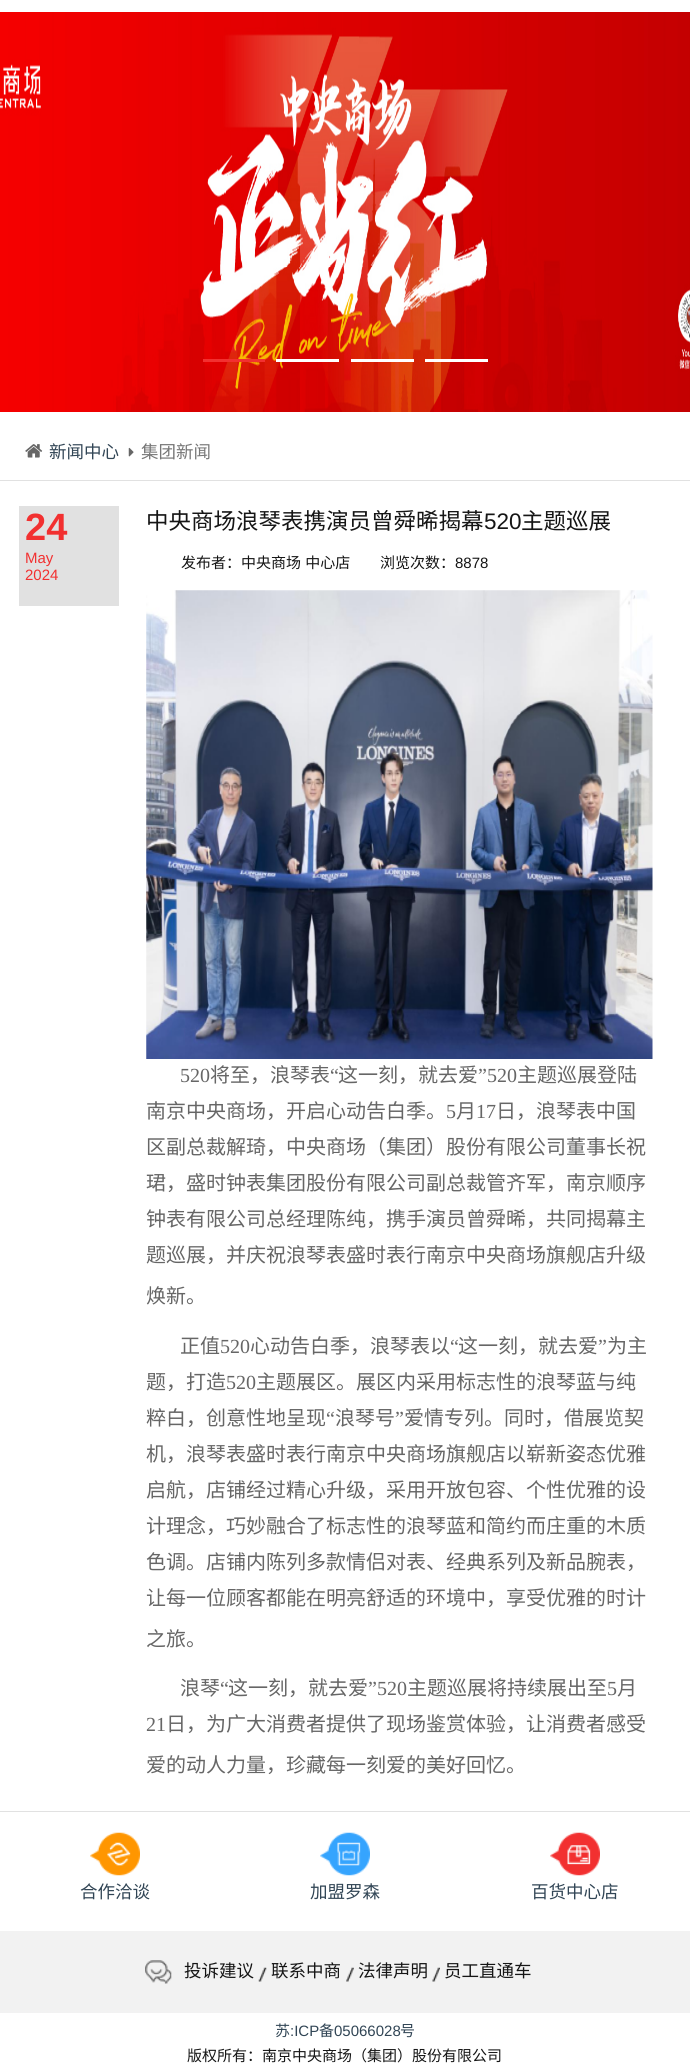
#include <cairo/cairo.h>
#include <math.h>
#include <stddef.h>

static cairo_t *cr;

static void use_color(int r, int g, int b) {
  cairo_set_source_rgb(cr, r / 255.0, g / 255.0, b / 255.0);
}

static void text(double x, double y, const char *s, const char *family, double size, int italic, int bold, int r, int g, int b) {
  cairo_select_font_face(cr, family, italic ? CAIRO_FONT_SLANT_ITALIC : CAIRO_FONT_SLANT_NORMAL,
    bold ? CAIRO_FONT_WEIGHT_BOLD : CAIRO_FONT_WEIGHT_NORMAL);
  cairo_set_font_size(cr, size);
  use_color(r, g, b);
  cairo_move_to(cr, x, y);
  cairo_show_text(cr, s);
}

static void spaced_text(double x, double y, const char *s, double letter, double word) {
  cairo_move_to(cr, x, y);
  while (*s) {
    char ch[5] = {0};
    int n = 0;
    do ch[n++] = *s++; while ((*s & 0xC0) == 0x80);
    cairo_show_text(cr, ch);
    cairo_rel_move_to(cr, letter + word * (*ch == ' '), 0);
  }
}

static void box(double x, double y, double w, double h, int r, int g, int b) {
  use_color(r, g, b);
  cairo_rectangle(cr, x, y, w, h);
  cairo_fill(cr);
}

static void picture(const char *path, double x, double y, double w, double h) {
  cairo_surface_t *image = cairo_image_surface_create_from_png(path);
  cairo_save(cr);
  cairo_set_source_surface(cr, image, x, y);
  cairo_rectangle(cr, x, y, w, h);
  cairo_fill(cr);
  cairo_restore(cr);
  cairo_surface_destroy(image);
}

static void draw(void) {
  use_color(255, 255, 255);
  cairo_paint(cr);
  picture("img_01.png", 0, 12, 690, 400);
  box(203, 359, 62, 3, 242, 48, 48);
  box(276, 359, 63, 3, 255, 255, 255);
  box(351, 359, 63, 3, 255, 255, 255);
  box(425, 359, 63, 3, 255, 255, 255);
  box(0, 480, 690, 1, 225, 225, 225);
  picture("img_02.png", 25, 444, 18, 14);
  picture("img_03.png", 128, 447, 6, 10);
  box(19, 506, 100, 100, 225, 225, 225);
  picture("img_04.png", 146, 590, 507, 469);
  box(0, 1811, 690, 1, 225, 225, 225);
  picture("img_05.png", 90, 1832, 50, 44);
  picture("img_06.png", 320, 1832, 50, 44);
  picture("img_07.png", 550, 1832, 50, 44);
  box(0, 1931, 690, 82, 242, 242, 242);
  picture("img_08.png", 258, 1967, 9, 15);
  picture("img_09.png", 145, 1960, 27, 24);
  picture("img_10.png", 346, 1967, 8, 15);
  picture("img_11.png", 432, 1967, 8, 15);
  text(49, 458, "新闻中心", "Noto Sans CJK SC", 17.5, 0, 0, 49, 69, 85);
  text(141, 458, "集团新闻", "Noto Sans CJK SC", 17.5, 0, 0, 119, 119, 119);
  text(25, 540, "24", "Liberation Sans", 38, 0, 1, 242, 48, 48);
  text(25, 563, "May", "Liberation Sans", 15, 0, 0, 242, 48, 48);
  text(25, 580, "2024", "Liberation Sans", 15, 0, 0, 242, 48, 48);
  text(146, 529, "中央商场浪琴表携演员曾舜晞揭幕", "Noto Sans CJK SC", 22.5, 0, 0, 21, 21, 21);
  text(484, 529, "520", "Liberation Sans", 22.5, 0, 0, 21, 21, 21);
  text(521, 529, "主题巡展", "Noto Sans CJK SC", 22.5, 0, 0, 21, 21, 21);
  cairo_set_font_size(cr, 15);
  spaced_text(181, 568, "发布者：中央商场 中心店", 0, 1);
  text(380, 568, "浏览次数：", "Noto Sans CJK SC", 15, 0, 0, 21, 21, 21);
  text(455, 568, "8878", "Liberation Sans", 15, 0, 0, 21, 21, 21);
  text(180, 1082, "520", "Liberation Serif", 20, 0, 0, 102, 102, 102);
  text(210, 1082, "将至，浪琴表", "Noto Sans CJK SC", 20, 0, 0, 102, 102, 102);
  text(330, 1082, "“", "Liberation Serif", 20, 0, 0, 102, 102, 102);
  text(338, 1082, "这一刻，就去爱", "Noto Sans CJK SC", 20, 0, 0, 102, 102, 102);
  text(478, 1082, "”520", "Liberation Serif", 20, 0, 0, 102, 102, 102);
  text(517, 1082, "主题巡展登陆", "Noto Sans CJK SC", 20, 0, 0, 102, 102, 102);
  text(146, 1118, "南京中央商场，开启心动告白季。", "Noto Sans CJK SC", 20, 0, 0, 102, 102, 102);
  text(446, 1118, "5", "Liberation Serif", 20, 0, 0, 102, 102, 102);
  text(456, 1118, "月", "Noto Sans CJK SC", 20, 0, 0, 102, 102, 102);
  text(476, 1118, "17", "Liberation Serif", 20, 0, 0, 102, 102, 102);
  text(496, 1118, "日，浪琴表中国", "Noto Sans CJK SC", 20, 0, 0, 102, 102, 102);
  text(146, 1154, "区副总裁解琦，中央商场（集团）股份有限公司董事长祝", "Noto Sans CJK SC", 20, 0, 0, 102, 102, 102);
  text(146, 1190, "珺，盛时钟表集团股份有限公司副总裁管齐军，南京顺序", "Noto Sans CJK SC", 20, 0, 0, 102, 102, 102);
  text(146, 1226, "钟表有限公司总经理陈纯，携手演员曾舜晞，共同揭幕主", "Noto Sans CJK SC", 20, 0, 0, 102, 102, 102);
  text(146, 1262, "题巡展，并庆祝浪琴表盛时表行南京中央商场旗舰店升级", "Noto Sans CJK SC", 20, 0, 0, 102, 102, 102);
  text(146, 1303, "焕新。", "Noto Sans CJK SC", 20, 0, 0, 102, 102, 102);
  text(180, 1353, "正值", "Noto Sans CJK SC", 20, 0, 0, 102, 102, 102);
  text(220, 1353, "520", "Liberation Serif", 20, 0, 0, 102, 102, 102);
  text(250, 1353, "心动告白季，浪琴表以", "Noto Sans CJK SC", 20, 0, 0, 102, 102, 102);
  text(450, 1353, "“", "Liberation Serif", 20, 0, 0, 102, 102, 102);
  text(458, 1353, "这一刻，就去爱", "Noto Sans CJK SC", 20, 0, 0, 102, 102, 102);
  text(598, 1353, "”", "Liberation Serif", 20, 0, 0, 102, 102, 102);
  text(607, 1353, "为主", "Noto Sans CJK SC", 20, 0, 0, 102, 102, 102);
  text(146, 1389, "题，打造", "Noto Sans CJK SC", 20, 0, 0, 102, 102, 102);
  text(226, 1389, "520", "Liberation Serif", 20, 0, 0, 102, 102, 102);
  text(256, 1389, "主题展区。展区内采用标志性的浪琴蓝与纯", "Noto Sans CJK SC", 20, 0, 0, 102, 102, 102);
  text(146, 1425, "粹白，创意性地呈现", "Noto Sans CJK SC", 20, 0, 0, 102, 102, 102);
  text(326, 1425, "“", "Liberation Serif", 20, 0, 0, 102, 102, 102);
  text(335, 1425, "浪琴号", "Noto Sans CJK SC", 20, 0, 0, 102, 102, 102);
  text(395, 1425, "”", "Liberation Serif", 20, 0, 0, 102, 102, 102);
  text(404, 1425, "爱情专列。同时，借展览契", "Noto Sans CJK SC", 20, 0, 0, 102, 102, 102);
  text(146, 1461, "机，浪琴表盛时表行南京中央商场旗舰店以崭新姿态优雅", "Noto Sans CJK SC", 20, 0, 0, 102, 102, 102);
  text(146, 1497, "启航，店铺经过精心升级，采用开放包容、个性优雅的设", "Noto Sans CJK SC", 20, 0, 0, 102, 102, 102);
  text(146, 1533, "计理念，巧妙融合了标志性的浪琴蓝和简约而庄重的木质", "Noto Sans CJK SC", 20, 0, 0, 102, 102, 102);
  text(146, 1569, "色调。店铺内陈列多款情侣对表、经典系列及新品腕表，", "Noto Sans CJK SC", 20, 0, 0, 102, 102, 102);
  text(146, 1605, "让每一位顾客都能在明亮舒适的环境中，享受优雅的时计", "Noto Sans CJK SC", 20, 0, 0, 102, 102, 102);
  text(146, 1646, "之旅。", "Noto Sans CJK SC", 20, 0, 0, 102, 102, 102);
  text(180, 1695, "浪琴", "Noto Sans CJK SC", 20, 0, 0, 102, 102, 102);
  text(220, 1695, "“", "Liberation Serif", 20, 0, 0, 102, 102, 102);
  text(228, 1695, "这一刻，就去爱", "Noto Sans CJK SC", 20, 0, 0, 102, 102, 102);
  text(368, 1695, "”520", "Liberation Serif", 20, 0, 0, 102, 102, 102);
  text(407, 1695, "主题巡展将持续展出至", "Noto Sans CJK SC", 20, 0, 0, 102, 102, 102);
  text(607, 1695, "5", "Liberation Serif", 20, 0, 0, 102, 102, 102);
  text(617, 1695, "月", "Noto Sans CJK SC", 20, 0, 0, 102, 102, 102);
  text(146, 1731, "21", "Liberation Serif", 20, 0, 0, 102, 102, 102);
  text(166, 1731, "日，为广大消费者提供了现场鉴赏体验，让消费者感受", "Noto Sans CJK SC", 20, 0, 0, 102, 102, 102);
  text(146, 1772, "爱的动人力量，珍藏每一刻爱的美好回忆。", "Noto Sans CJK SC", 20, 0, 0, 102, 102, 102);
  text(80, 1898, "合作洽谈", "Noto Sans CJK SC", 17.5, 0, 0, 49, 69, 85);
  text(310, 1898, "加盟罗森", "Noto Sans CJK SC", 17.5, 0, 0, 49, 69, 85);
  text(531, 1898, "百货中心店", "Noto Sans CJK SC", 17.5, 0, 0, 49, 69, 85);
  text(184, 1977, "投诉建议", "Noto Sans CJK SC", 17.5, 0, 0, 21, 21, 21);
  text(271, 1977, "联系中商", "Noto Sans CJK SC", 17.5, 0, 0, 21, 21, 21);
  text(358, 1977, "法律声明", "Noto Sans CJK SC", 17.5, 0, 0, 21, 21, 21);
  text(444, 1977, "员工直通车", "Noto Sans CJK SC", 17.5, 0, 0, 21, 21, 21);
  text(275, 2036, "苏", "Noto Sans CJK SC", 15, 0, 0, 49, 69, 85);
  text(290, 2036, ":ICP", "Liberation Sans", 15, 0, 0, 49, 69, 85);
  text(319, 2036, "备", "Noto Sans CJK SC", 15, 0, 0, 49, 69, 85);
  text(334, 2036, "05066028", "Liberation Sans", 15, 0, 0, 49, 69, 85);
  text(400, 2036, "号", "Noto Sans CJK SC", 15, 0, 0, 49, 69, 85);
  text(187, 2061, "版权所有：南京中央商场（集团）股份有限公司", "Noto Sans CJK SC", 15, 0, 0, 21, 21, 21);
}

int main(void) {
  cairo_surface_t *surface = cairo_image_surface_create(CAIRO_FORMAT_RGB24, 690, 2067);
  cr = cairo_create(surface);
  cairo_font_options_t *options = cairo_font_options_create();
  cairo_font_options_set_hint_metrics(options, CAIRO_HINT_METRICS_OFF);
  cairo_font_options_set_hint_style(options, CAIRO_HINT_STYLE_NONE);
  cairo_set_font_options(cr, options);
  cairo_set_miter_limit(cr, 4);
  draw();
  cairo_surface_write_to_png(surface, "out.png");
  cairo_font_options_destroy(options);
  cairo_destroy(cr);
  cairo_surface_destroy(surface);
  return 0;
}
